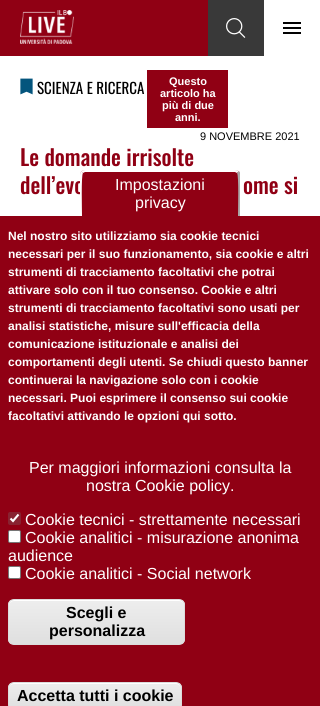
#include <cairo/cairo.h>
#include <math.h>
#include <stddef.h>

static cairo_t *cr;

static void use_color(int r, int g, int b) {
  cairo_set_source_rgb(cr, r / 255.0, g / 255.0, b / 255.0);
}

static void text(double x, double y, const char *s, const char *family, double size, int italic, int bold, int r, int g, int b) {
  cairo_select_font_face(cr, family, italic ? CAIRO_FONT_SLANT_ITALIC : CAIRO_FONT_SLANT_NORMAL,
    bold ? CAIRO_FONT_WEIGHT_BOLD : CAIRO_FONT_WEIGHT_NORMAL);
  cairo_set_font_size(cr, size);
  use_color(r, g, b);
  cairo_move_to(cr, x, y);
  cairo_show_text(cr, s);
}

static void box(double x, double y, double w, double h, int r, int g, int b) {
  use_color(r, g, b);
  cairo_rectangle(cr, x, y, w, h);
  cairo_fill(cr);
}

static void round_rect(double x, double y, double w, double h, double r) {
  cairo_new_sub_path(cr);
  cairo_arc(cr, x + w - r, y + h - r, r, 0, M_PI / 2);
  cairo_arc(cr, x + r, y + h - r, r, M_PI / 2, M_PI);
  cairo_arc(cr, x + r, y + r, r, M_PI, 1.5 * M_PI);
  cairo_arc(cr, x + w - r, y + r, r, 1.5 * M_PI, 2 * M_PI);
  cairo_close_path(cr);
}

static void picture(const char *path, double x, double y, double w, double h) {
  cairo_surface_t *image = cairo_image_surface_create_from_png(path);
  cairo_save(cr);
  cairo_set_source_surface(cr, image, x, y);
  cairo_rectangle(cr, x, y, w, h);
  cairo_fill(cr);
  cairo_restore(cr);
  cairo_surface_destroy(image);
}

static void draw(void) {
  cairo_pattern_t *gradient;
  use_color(255, 255, 255);
  cairo_paint(cr);
  box(0, 0, 208, 56, 144, 0, 20);
  picture("img_01.png", 20, 10, 54, 34);
  box(208, 0, 56, 56, 57, 57, 57);
  picture("img_02.png", 226, 18, 20, 20);
  picture("img_03.png", 283, 22, 18, 12);
  picture("img_04.png", 20, 78, 13, 17);
  box(147, 70, 81, 58, 144, 0, 20);
  box(0, 216, 320, 490, 144, 0, 20);
  cairo_new_path(cr);
  cairo_move_to(cr, 85, 170);
  cairo_line_to(cr, 235, 170);
  cairo_curve_to(cr, 238, 170, 240, 172, 240, 175);
  cairo_line_to(cr, 240, 216);
  cairo_line_to(cr, 80, 216);
  cairo_line_to(cr, 80, 175);
  cairo_curve_to(cr, 80, 172, 82, 170, 85, 170);
  cairo_close_path(cr);
  cairo_fill(cr);
  use_color(255, 255, 255);
  cairo_new_path(cr);
  cairo_move_to(cr, 85, 170);
  cairo_curve_to(cr, 84, 170, 82, 170, 81, 171);
  cairo_line_to(cr, 83, 173);
  cairo_line_to(cr, 85, 172);
  cairo_line_to(cr, 235, 172);
  cairo_line_to(cr, 237, 173);
  cairo_line_to(cr, 239, 171);
  cairo_curve_to(cr, 238, 170, 236, 170, 235, 170);
  cairo_close_path(cr);
  cairo_fill(cr);
  use_color(170, 170, 170);
  cairo_new_path(cr);
  cairo_move_to(cr, 238, 216);
  cairo_line_to(cr, 240, 216);
  cairo_line_to(cr, 240, 175);
  cairo_curve_to(cr, 240, 174, 240, 172, 239, 171);
  cairo_line_to(cr, 237, 173);
  cairo_curve_to(cr, 239, 175, 238, 211, 238, 216);
  cairo_close_path(cr);
  cairo_fill(cr);
  use_color(136, 35, 49);
  round_rect(8, 512, 13, 13, 2);
  cairo_fill(cr);
  cairo_new_path(cr);
  cairo_move_to(cr, 10.5, 518.5);
  cairo_line_to(cr, 13, 521);
  cairo_line_to(cr, 18.5, 514.5);
  use_color(255, 255, 255);
  cairo_set_line_width(cr, 2.1);
  cairo_stroke(cr);
  round_rect(8.5, 530.5, 12, 12, 1.5);
  cairo_fill_preserve(cr);
  use_color(118, 118, 118);
  cairo_set_line_width(cr, 1);
  cairo_stroke(cr);
  use_color(255, 255, 255);
  round_rect(8.5, 566.5, 12, 12, 1.5);
  cairo_fill_preserve(cr);
  use_color(118, 118, 118);
  cairo_stroke(cr);
  cairo_save(cr);
  round_rect(8, 599, 177, 46, 6);
  cairo_clip(cr);
  gradient = cairo_pattern_create_linear(97, 600, 97, 644);
  cairo_pattern_add_color_stop_rgba(gradient, 0.05, 0.929, 0.929, 0.929, 1);
  cairo_pattern_add_color_stop_rgba(gradient, 1, 0.875, 0.875, 0.875, 1);
  cairo_set_source(cr, gradient);
  cairo_pattern_destroy(gradient);
  cairo_rectangle(cr, 8, 600, 177, 44);
  cairo_fill(cr);
  cairo_restore(cr);
  use_color(255, 255, 255);
  cairo_new_path(cr);
  cairo_move_to(cr, 14, 601);
  cairo_line_to(cr, 179, 601);
  cairo_curve_to(cr, 182, 601, 184, 603, 184, 606);
  cairo_curve_to(cr, 184, 603, 183, 601, 180, 600);
  cairo_line_to(cr, 14, 600);
  cairo_line_to(cr, 11, 601);
  cairo_curve_to(cr, 9, 602, 9, 604, 9, 606);
  cairo_curve_to(cr, 9, 603, 11, 601, 14, 601);
  cairo_close_path(cr);
  cairo_fill(cr);
  round_rect(8.5, 599.5, 176, 45, 5.5);
  use_color(220, 220, 220);
  cairo_stroke(cr);
  cairo_save(cr);
  round_rect(8, 682, 174, 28, 6);
  cairo_clip(cr);
  gradient = cairo_pattern_create_linear(95, 683, 95, 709);
  cairo_pattern_add_color_stop_rgba(gradient, 0.05, 0.929, 0.929, 0.929, 1);
  cairo_pattern_add_color_stop_rgba(gradient, 1, 0.875, 0.875, 0.875, 1);
  cairo_set_source(cr, gradient);
  cairo_pattern_destroy(gradient);
  cairo_rectangle(cr, 8, 683, 174, 23);
  cairo_fill(cr);
  cairo_restore(cr);
  use_color(255, 255, 255);
  cairo_new_path(cr);
  cairo_move_to(cr, 14, 684);
  cairo_line_to(cr, 176, 684);
  cairo_curve_to(cr, 179, 684, 181, 686, 181, 689);
  cairo_curve_to(cr, 181, 686, 180, 684, 177, 683);
  cairo_line_to(cr, 14, 683);
  cairo_curve_to(cr, 11, 683, 9, 686, 9, 689);
  cairo_curve_to(cr, 9, 686, 11, 684, 14, 684);
  cairo_close_path(cr);
  cairo_fill(cr);
  round_rect(8.5, 682.5, 173, 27, 5.5);
  use_color(220, 220, 220);
  cairo_stroke(cr);
  text(37, 94, "SCIENZA E RICERCA", "Oswald", 15, 0, 0, 0, 0, 0);
  text(169, 85, "Questo", "Liberation Sans", 11, 0, 1, 255, 255, 255);
  text(160, 97, "articolo ha", "Liberation Sans", 11, 0, 1, 255, 255, 255);
  text(162, 109, "più di due", "Liberation Sans", 11, 0, 1, 255, 255, 255);
  text(175, 121, "anni.", "Liberation Sans", 11, 0, 1, 255, 255, 255);
  text(200, 140, "9 NOVEMBRE 2021", "Liberation Sans", 11, 0, 0, 0, 0, 0);
  text(20, 166, "Le domande irrisolte", "Oswald Medium", 22, 0, 0, 144, 0, 20);
  text(20, 194, "dell’evo", "Oswald Medium", 22, 0, 0, 144, 0, 20);
  text(243, 194, "ome si", "Oswald Medium", 22, 0, 0, 144, 0, 20);
  use_color(255, 255, 255);
  cairo_new_path(cr);
  cairo_move_to(cr, 80, 216);
  cairo_line_to(cr, 82, 216);
  cairo_curve_to(cr, 82, 211, 81, 175, 83, 173);
  cairo_line_to(cr, 81, 171);
  cairo_curve_to(cr, 80, 172, 80, 174, 80, 175);
  cairo_close_path(cr);
  cairo_fill(cr);
  text(115, 190, "Impostazioni", "Liberation Sans", 16, 0, 0, 255, 255, 255);
  text(135, 208, "privacy", "Liberation Sans", 16, 0, 0, 255, 255, 255);
  text(8, 240, "Nel nostro sito utilizziamo sia cookie tecnici", "Liberation Sans", 12, 0, 1, 255, 255, 255);
  text(8, 258, "necessari per il suo funzionamento, sia cookie e altri", "Liberation Sans", 12, 0, 1, 255, 255, 255);
  text(8, 276, "strumenti di tracciamento facoltativi che potrai", "Liberation Sans", 12, 0, 1, 255, 255, 255);
  text(8, 294, "attivare solo con il tuo consenso. Cookie e altri", "Liberation Sans", 12, 0, 1, 255, 255, 255);
  text(8, 312, "strumenti di tracciamento facoltativi sono usati per", "Liberation Sans", 12, 0, 1, 255, 255, 255);
  text(8, 330, "analisi statistiche, misure sull'efficacia della", "Liberation Sans", 12, 0, 1, 255, 255, 255);
  text(8, 348, "comunicazione istituzionale e analisi dei", "Liberation Sans", 12, 0, 1, 255, 255, 255);
  text(8, 366, "comportamenti degli utenti. Se chiudi questo banner", "Liberation Sans", 12, 0, 1, 255, 255, 255);
  text(8, 384, "continuerai la navigazione solo con i cookie", "Liberation Sans", 12, 0, 1, 255, 255, 255);
  text(8, 402, "necessari. Puoi esprimere il consenso sui cookie", "Liberation Sans", 12, 0, 1, 255, 255, 255);
  text(8, 420, "facoltativi attivando le opzioni qui sotto.", "Liberation Sans", 12, 0, 1, 255, 255, 255);
  text(29, 473, "Per maggiori informazioni consulta la", "Liberation Sans", 16, 0, 0, 255, 255, 255);
  text(86, 491, "nostra Cookie policy.", "Liberation Sans", 16, 0, 0, 255, 255, 255);
  text(25, 525, "Cookie tecnici - strettamente necessari", "Liberation Sans", 16, 0, 0, 255, 255, 255);
  text(25, 543, "Cookie analitici - misurazione anonima", "Liberation Sans", 16, 0, 0, 255, 255, 255);
  text(8, 561, "audience", "Liberation Sans", 16, 0, 0, 255, 255, 255);
  text(25, 579, "Cookie analitici - Social network", "Liberation Sans", 16, 0, 0, 255, 255, 255);
  text(66, 618, "Scegli e", "Liberation Sans", 16, 0, 1, 0, 0, 0);
  text(49, 636, "personalizza", "Liberation Sans", 16, 0, 1, 0, 0, 0);
  text(17, 701, "Accetta tutti i cookie", "Liberation Sans", 16, 0, 1, 0, 0, 0);
}

int main(void) {
  cairo_surface_t *surface = cairo_image_surface_create(CAIRO_FORMAT_RGB24, 320, 706);
  cr = cairo_create(surface);
  cairo_font_options_t *options = cairo_font_options_create();
  cairo_font_options_set_hint_metrics(options, CAIRO_HINT_METRICS_OFF);
  cairo_font_options_set_hint_style(options, CAIRO_HINT_STYLE_NONE);
  cairo_set_font_options(cr, options);
  cairo_set_miter_limit(cr, 4);
  draw();
  cairo_surface_write_to_png(surface, "out.png");
  cairo_font_options_destroy(options);
  cairo_destroy(cr);
  cairo_surface_destroy(surface);
  return 0;
}
